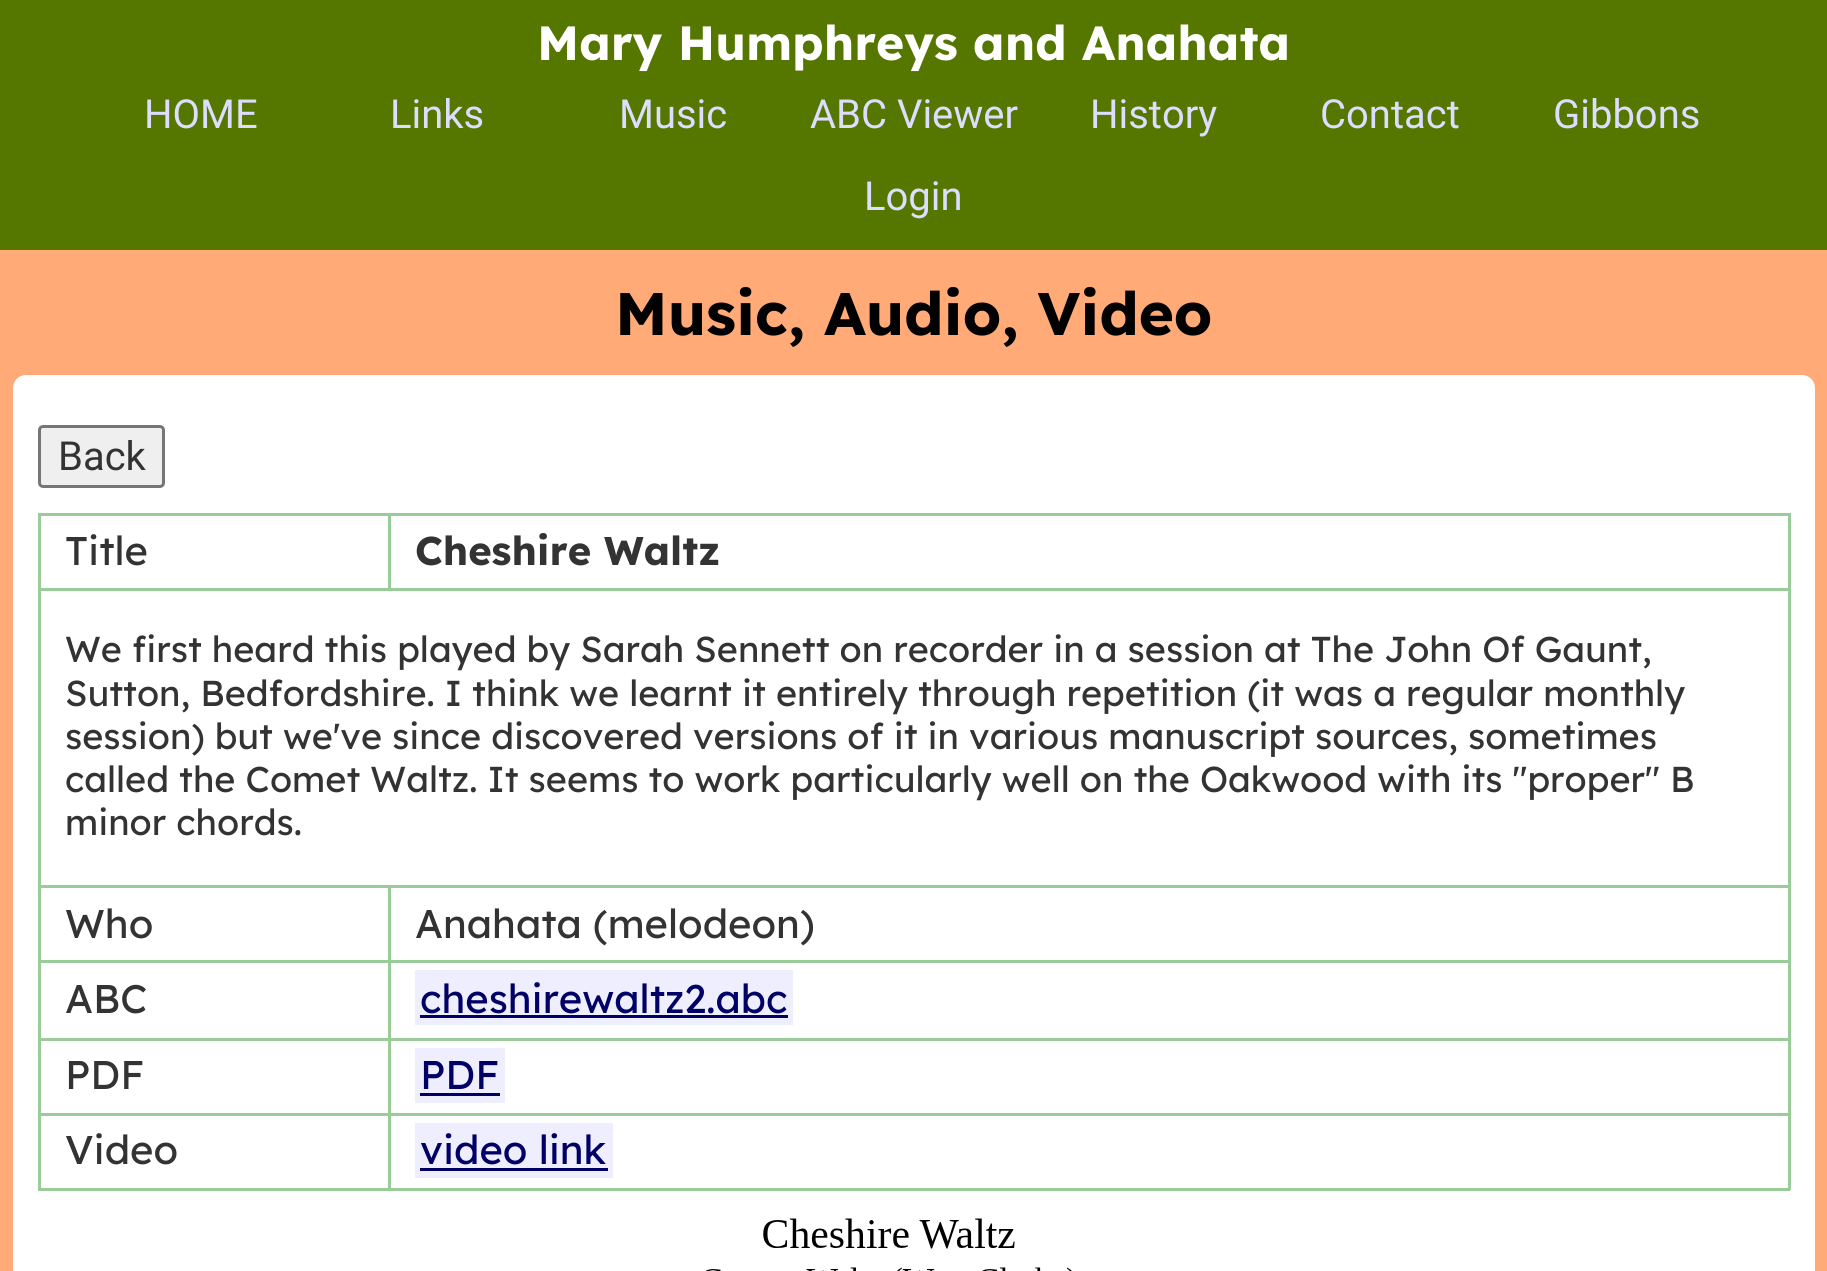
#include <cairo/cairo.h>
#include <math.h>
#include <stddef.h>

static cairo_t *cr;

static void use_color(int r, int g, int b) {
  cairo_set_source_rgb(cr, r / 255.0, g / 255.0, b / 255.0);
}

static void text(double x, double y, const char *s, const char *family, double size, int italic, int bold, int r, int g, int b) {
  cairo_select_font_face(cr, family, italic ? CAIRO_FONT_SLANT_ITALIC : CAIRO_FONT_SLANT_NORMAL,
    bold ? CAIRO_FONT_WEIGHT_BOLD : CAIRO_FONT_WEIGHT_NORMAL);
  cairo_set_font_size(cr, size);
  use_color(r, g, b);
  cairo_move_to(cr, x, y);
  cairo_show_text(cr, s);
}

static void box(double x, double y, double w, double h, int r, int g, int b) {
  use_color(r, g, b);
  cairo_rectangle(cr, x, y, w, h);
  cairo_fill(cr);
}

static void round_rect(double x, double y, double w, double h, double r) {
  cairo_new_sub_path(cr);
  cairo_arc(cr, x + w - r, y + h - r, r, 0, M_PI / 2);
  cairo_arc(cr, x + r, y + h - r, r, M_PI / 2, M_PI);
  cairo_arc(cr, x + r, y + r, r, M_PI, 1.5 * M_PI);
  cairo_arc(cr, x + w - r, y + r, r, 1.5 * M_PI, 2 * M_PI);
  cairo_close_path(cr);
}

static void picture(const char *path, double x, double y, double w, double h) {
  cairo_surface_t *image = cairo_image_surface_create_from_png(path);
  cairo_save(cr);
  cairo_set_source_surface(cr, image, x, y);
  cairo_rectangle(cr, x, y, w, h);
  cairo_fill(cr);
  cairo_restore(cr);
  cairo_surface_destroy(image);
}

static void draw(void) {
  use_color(255, 170, 119);
  cairo_paint(cr);
  box(0, 0, 1827, 250, 85, 119, 0);
  use_color(255, 255, 255);
  round_rect(13, 375, 1802, 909, 13);
  cairo_fill(cr);
  use_color(239, 239, 239);
  round_rect(39.5, 426.5, 124, 60, 3.5);
  cairo_fill_preserve(cr);
  use_color(118, 118, 118);
  cairo_set_line_width(cr, 3);
  cairo_stroke(cr);
  box(388, 513, 1402, 3, 153, 204, 153);
  box(38, 588, 1752, 3, 153, 204, 153);
  box(388, 513, 3, 77, 153, 204, 153);
  box(38, 513, 352, 3, 153, 204, 153);
  box(388, 885, 1402, 3, 153, 204, 153);
  box(388, 960, 1402, 3, 153, 204, 153);
  box(388, 1038, 1402, 3, 153, 204, 153);
  box(388, 1113, 1402, 3, 153, 204, 153);
  box(1788, 1113, 3, 77, 153, 204, 153);
  box(388, 1188, 1402, 3, 153, 204, 153);
  box(388, 1113, 3, 77, 153, 204, 153);
  box(38, 1113, 352, 3, 153, 204, 153);
  box(388, 1038, 3, 77, 153, 204, 153);
  box(38, 1038, 352, 3, 153, 204, 153);
  box(388, 960, 3, 80, 153, 204, 153);
  box(38, 960, 352, 3, 153, 204, 153);
  box(388, 885, 3, 78, 153, 204, 153);
  box(38, 885, 352, 3, 153, 204, 153);
  box(38, 1188, 352, 3, 153, 204, 153);
  box(38, 1113, 3, 77, 153, 204, 153);
  box(38, 1038, 3, 77, 153, 204, 153);
  box(38, 960, 3, 80, 153, 204, 153);
  box(38, 885, 3, 78, 153, 204, 153);
  box(38, 588, 3, 300, 153, 204, 153);
  box(38, 513, 3, 77, 153, 204, 153);
  box(1788, 1038, 3, 77, 153, 204, 153);
  box(1788, 960, 3, 80, 153, 204, 153);
  box(1788, 885, 3, 78, 153, 204, 153);
  box(1788, 588, 3, 300, 153, 204, 153);
  box(1788, 513, 3, 77, 153, 204, 153);
  box(415, 970, 378, 55, 238, 238, 255);
  box(420, 1015, 368, 3, 0, 0, 102);
  box(415, 1048, 90, 55, 238, 238, 255);
  box(420, 1093, 80, 3, 0, 0, 102);
  box(415, 1123, 198, 55, 238, 238, 255);
  box(420, 1168, 188, 3, 0, 0, 102);
  picture("img_01.png", 705, 1218, 367, 53);
  text(537, 60, "Mary Humphreys and Anahata", "Lexend", 48, 0, 1, 255, 255, 255);
  text(144, 128, "HOME", "Roboto", 40, 0, 0, 221, 221, 255);
  text(390, 128, "Links", "Roboto", 40, 0, 0, 221, 221, 255);
  text(619, 128, "Music", "Roboto", 40, 0, 0, 221, 221, 255);
  text(810, 128, "ABC Viewer", "Roboto", 40, 0, 0, 221, 221, 255);
  text(1090, 128, "History", "Roboto", 40, 0, 0, 221, 221, 255);
  text(1320, 128, "Contact", "Roboto", 40, 0, 0, 221, 221, 255);
  text(1553, 128, "Gibbons", "Roboto", 40, 0, 0, 221, 221, 255);
  text(864, 210, "Login", "Roboto", 40, 0, 0, 221, 221, 255);
  text(615, 335, "Music, Audio, Video", "Lexend", 60, 0, 1, 0, 0, 0);
  text(58, 470, "Back", "Roboto", 40, 0, 0, 51, 51, 51);
  text(65, 565, "Title", "Lexend", 40, 0, 0, 51, 51, 51);
  text(415, 565, "Cheshire Waltz", "Lexend", 40, 0, 1, 51, 51, 51);
  text(65, 662, "We first heard this played by Sarah Sennett on recorder in a session at The John Of Gaunt,", "Lexend", 36, 0, 0, 51, 51, 51);
  text(65, 706, "Sutton, Bedfordshire. I think we learnt it entirely through repetition (it was a regular monthly", "Lexend", 36, 0, 0, 51, 51, 51);
  text(65, 749, "session) but we've since discovered versions of it in various manuscript sources, sometimes", "Lexend", 36, 0, 0, 51, 51, 51);
  text(65, 792, "called the Comet Waltz. It seems to work particularly well on the Oakwood with its \"proper\" B", "Lexend", 36, 0, 0, 51, 51, 51);
  text(65, 835, "minor chords.", "Lexend", 36, 0, 0, 51, 51, 51);
  text(65, 938, "Who", "Lexend", 40, 0, 0, 51, 51, 51);
  text(415, 938, "Anahata (melodeon)", "Lexend", 40, 0, 0, 51, 51, 51);
  text(65, 1013, "ABC", "Lexend", 40, 0, 0, 51, 51, 51);
  text(420, 1013, "cheshirewaltz2.abc", "Lexend", 40, 0, 0, 0, 0, 102);
  text(65, 1089, "PDF", "Lexend", 40, 0, 0, 51, 51, 51);
  text(420, 1089, "PDF", "Lexend", 40, 0, 0, 0, 0, 102);
  text(65, 1164, "Video", "Lexend", 40, 0, 0, 51, 51, 51);
  text(420, 1164, "video link", "Lexend", 40, 0, 0, 0, 0, 102);
}

int main(void) {
  cairo_surface_t *surface = cairo_image_surface_create(CAIRO_FORMAT_RGB24, 1827, 1271);
  cr = cairo_create(surface);
  cairo_font_options_t *options = cairo_font_options_create();
  cairo_font_options_set_hint_metrics(options, CAIRO_HINT_METRICS_OFF);
  cairo_font_options_set_hint_style(options, CAIRO_HINT_STYLE_NONE);
  cairo_set_font_options(cr, options);
  cairo_set_miter_limit(cr, 4);
  draw();
  cairo_surface_write_to_png(surface, "out.png");
  cairo_font_options_destroy(options);
  cairo_destroy(cr);
  cairo_surface_destroy(surface);
  return 0;
}
